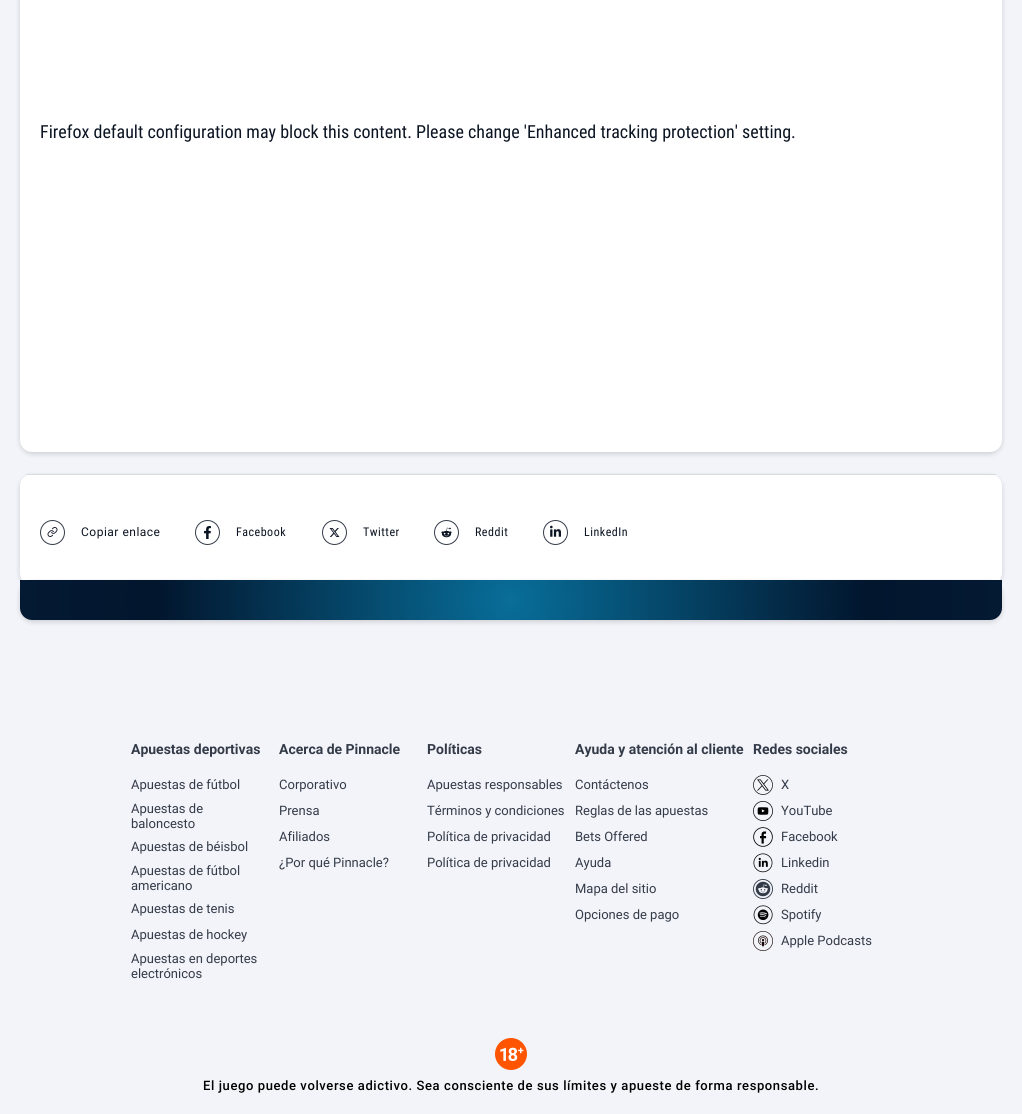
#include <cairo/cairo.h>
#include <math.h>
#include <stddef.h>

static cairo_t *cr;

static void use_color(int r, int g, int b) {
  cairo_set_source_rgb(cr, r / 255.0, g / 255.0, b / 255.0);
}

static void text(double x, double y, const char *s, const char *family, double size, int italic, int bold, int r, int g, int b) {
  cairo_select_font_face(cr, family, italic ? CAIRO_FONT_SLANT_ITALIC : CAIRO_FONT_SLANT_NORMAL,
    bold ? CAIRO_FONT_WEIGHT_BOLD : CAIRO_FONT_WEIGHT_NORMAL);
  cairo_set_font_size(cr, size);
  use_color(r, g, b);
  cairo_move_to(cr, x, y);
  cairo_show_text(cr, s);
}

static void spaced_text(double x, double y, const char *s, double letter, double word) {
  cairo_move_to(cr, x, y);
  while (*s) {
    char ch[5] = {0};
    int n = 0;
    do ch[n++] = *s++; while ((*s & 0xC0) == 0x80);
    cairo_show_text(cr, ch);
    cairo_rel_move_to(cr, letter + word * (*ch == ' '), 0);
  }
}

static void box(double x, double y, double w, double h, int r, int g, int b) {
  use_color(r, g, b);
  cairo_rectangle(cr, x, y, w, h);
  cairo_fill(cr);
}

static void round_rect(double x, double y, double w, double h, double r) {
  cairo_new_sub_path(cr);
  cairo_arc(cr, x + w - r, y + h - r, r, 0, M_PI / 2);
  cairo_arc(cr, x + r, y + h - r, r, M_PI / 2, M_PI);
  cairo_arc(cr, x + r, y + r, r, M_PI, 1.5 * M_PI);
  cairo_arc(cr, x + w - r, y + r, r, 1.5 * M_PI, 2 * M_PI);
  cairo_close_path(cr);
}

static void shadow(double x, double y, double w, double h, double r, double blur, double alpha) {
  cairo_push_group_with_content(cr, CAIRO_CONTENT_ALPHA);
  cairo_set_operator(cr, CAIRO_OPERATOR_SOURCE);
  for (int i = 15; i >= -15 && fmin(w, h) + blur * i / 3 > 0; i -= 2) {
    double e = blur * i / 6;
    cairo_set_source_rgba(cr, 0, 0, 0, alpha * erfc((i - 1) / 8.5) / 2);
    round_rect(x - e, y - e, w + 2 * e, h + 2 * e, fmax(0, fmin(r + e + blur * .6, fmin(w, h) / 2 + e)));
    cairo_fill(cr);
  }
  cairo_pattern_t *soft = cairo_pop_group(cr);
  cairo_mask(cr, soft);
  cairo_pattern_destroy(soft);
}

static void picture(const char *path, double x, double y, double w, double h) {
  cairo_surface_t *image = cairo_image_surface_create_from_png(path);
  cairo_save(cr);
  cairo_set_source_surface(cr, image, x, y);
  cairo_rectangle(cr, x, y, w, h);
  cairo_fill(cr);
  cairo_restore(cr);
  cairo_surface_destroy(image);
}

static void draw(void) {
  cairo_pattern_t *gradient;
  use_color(242, 244, 249);
  cairo_paint(cr);
  use_color(0, 0, 0);
  shadow(20, -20, 982, 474, 12, 2.5, 0.15);
  use_color(255, 255, 255);
  round_rect(20, -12, 982, 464, 12);
  cairo_fill(cr);
  use_color(0, 0, 0);
  shadow(20, 476, 982, 111, 12, 2.5, 0.15);
  use_color(255, 255, 255);
  round_rect(20, 474, 982, 111, 12);
  cairo_fill(cr);
  box(26, 474, 970, 1, 218, 219, 220);
  cairo_arc(cr, 52.5, 532.5, 12, 0, 2 * M_PI);
  use_color(52, 59, 72);
  cairo_set_line_width(cr, 1);
  cairo_stroke(cr);
  picture("img_01.png", 47, 527, 11, 10);
  cairo_arc(cr, 207.5, 532.5, 12, 0, 2 * M_PI);
  cairo_stroke(cr);
  picture("img_02.png", 204, 526, 7, 13);
  cairo_arc(cr, 334.5, 532.5, 12, 0, 2 * M_PI);
  cairo_stroke(cr);
  picture("img_03.png", 329, 528, 11, 9);
  cairo_arc(cr, 446.5, 532.5, 12, 0, 2 * M_PI);
  cairo_stroke(cr);
  picture("img_04.png", 441, 527, 11, 11);
  cairo_arc(cr, 555.5, 532.5, 12, 0, 2 * M_PI);
  cairo_stroke(cr);
  picture("img_05.png", 550, 525, 11, 12);
  use_color(0, 0, 0);
  shadow(20, 582, 982, 40, 12, 2.5, 0.15);
  gradient = cairo_pattern_create_radial(511, 600, 0, 511, 600, 491);
  cairo_pattern_add_color_stop_rgba(gradient, 0, 0.031, 0.431, 0.6, 1);
  cairo_pattern_add_color_stop_rgba(gradient, 0.72, 0.008, 0.086, 0.18, 1);
  cairo_pattern_add_color_stop_rgba(gradient, 1, 0.016, 0.098, 0.196, 1);
  cairo_set_source(cr, gradient);
  cairo_pattern_destroy(gradient);
  cairo_new_path(cr);
  cairo_move_to(cr, 20, 580);
  cairo_line_to(cr, 1002, 580);
  cairo_line_to(cr, 1002, 608);
  cairo_curve_to(cr, 1002, 614.5, 996.5, 620, 990, 620);
  cairo_line_to(cr, 32, 620);
  cairo_curve_to(cr, 25.5, 620, 20, 614.5, 20, 608);
  cairo_close_path(cr);
  cairo_fill(cr);
  picture("img_06.png", 753, 775, 20, 20);
  picture("img_07.png", 753, 801, 20, 20);
  picture("img_08.png", 753, 827, 20, 20);
  picture("img_09.png", 753, 853, 20, 20);
  picture("img_10.png", 753, 879, 20, 20);
  picture("img_11.png", 753, 905, 20, 20);
  picture("img_12.png", 753, 931, 20, 20);
  picture("img_13.png", 495, 1038, 32, 32);
  text(40, 138, "Firefox default configuration may block this content. Please change 'Enhanced tracking protection' setting.", "Roboto Condensed", 18, 0, 0, 11, 20, 34);
  cairo_select_font_face(cr, "Roboto", CAIRO_FONT_SLANT_NORMAL, CAIRO_FONT_WEIGHT_NORMAL);
  cairo_set_font_size(cr, 12);
  spaced_text(81, 536, "Copiar enlace", 0.5, 0);
  cairo_select_font_face(cr, "Roboto Condensed", CAIRO_FONT_SLANT_NORMAL, CAIRO_FONT_WEIGHT_NORMAL);
  spaced_text(236, 536, "Facebook", 0.5, 0);
  spaced_text(363, 536, "Twitter", 0.5, 0);
  spaced_text(475, 536, "Reddit", 0.5, 0);
  spaced_text(584, 536, "LinkedIn", 0.5, 0);
  text(131, 754, "Apuestas deportivas", "Roboto", 14, 0, 1, 52, 59, 72);
  text(131, 789, "Apuestas de fútbol", "Roboto", 13, 0, 0, 52, 59, 72);
  text(131, 813, "Apuestas de", "Roboto", 13, 0, 0, 52, 59, 72);
  text(131, 828, "baloncesto", "Roboto", 13, 0, 0, 52, 59, 72);
  text(131, 851, "Apuestas de béisbol", "Roboto", 13, 0, 0, 52, 59, 72);
  text(131, 875, "Apuestas de fútbol", "Roboto", 13, 0, 0, 52, 59, 72);
  text(131, 890, "americano", "Roboto", 13, 0, 0, 52, 59, 72);
  text(131, 913, "Apuestas de tenis", "Roboto", 13, 0, 0, 52, 59, 72);
  text(131, 939, "Apuestas de hockey", "Roboto", 13, 0, 0, 52, 59, 72);
  text(131, 963, "Apuestas en deportes", "Roboto", 13, 0, 0, 52, 59, 72);
  text(131, 978, "electrónicos", "Roboto", 13, 0, 0, 52, 59, 72);
  text(279, 754, "Acerca de Pinnacle", "Roboto", 14, 0, 1, 52, 59, 72);
  text(279, 789, "Corporativo", "Roboto", 13, 0, 0, 52, 59, 72);
  text(279, 815, "Prensa", "Roboto", 13, 0, 0, 52, 59, 72);
  text(279, 841, "Afiliados", "Roboto", 13, 0, 0, 52, 59, 72);
  text(279, 867, "¿Por qué Pinnacle?", "Roboto", 13, 0, 0, 52, 59, 72);
  text(427, 754, "Políticas", "Roboto", 14, 0, 1, 52, 59, 72);
  text(427, 789, "Apuestas responsables", "Roboto", 13, 0, 0, 52, 59, 72);
  text(427, 815, "Términos y condiciones", "Roboto", 13, 0, 0, 52, 59, 72);
  text(427, 841, "Política de privacidad", "Roboto", 13, 0, 0, 52, 59, 72);
  text(427, 867, "Política de privacidad", "Roboto", 13, 0, 0, 52, 59, 72);
  text(575, 754, "Ayuda y atención al cliente", "Roboto", 14, 0, 1, 52, 59, 72);
  text(575, 789, "Contáctenos", "Roboto", 13, 0, 0, 52, 59, 72);
  text(575, 815, "Reglas de las apuestas", "Roboto", 13, 0, 0, 52, 59, 72);
  text(575, 841, "Bets Offered", "Roboto", 13, 0, 0, 52, 59, 72);
  text(575, 867, "Ayuda", "Roboto", 13, 0, 0, 52, 59, 72);
  text(575, 893, "Mapa del sitio", "Roboto", 13, 0, 0, 52, 59, 72);
  text(575, 919, "Opciones de pago", "Roboto", 13, 0, 0, 52, 59, 72);
  text(753, 754, "Redes sociales", "Roboto", 14, 0, 1, 52, 59, 72);
  text(781, 789, "X", "Roboto", 13, 0, 0, 52, 59, 72);
  text(781, 815, "YouTube", "Roboto", 13, 0, 0, 52, 59, 72);
  text(781, 841, "Facebook", "Roboto", 13, 0, 0, 52, 59, 72);
  text(781, 867, "Linkedin", "Roboto", 13, 0, 0, 52, 59, 72);
  text(781, 893, "Reddit", "Roboto", 13, 0, 0, 52, 59, 72);
  text(781, 919, "Spotify", "Roboto", 13, 0, 0, 52, 59, 72);
  text(781, 945, "Apple Podcasts", "Roboto", 13, 0, 0, 52, 59, 72);
  cairo_select_font_face(cr, "Roboto Medium", CAIRO_FONT_SLANT_NORMAL, CAIRO_FONT_WEIGHT_NORMAL);
  use_color(0, 0, 0);
  spaced_text(203, 1090, "El juego puede volverse adictivo. Sea consciente de sus límites y apueste de forma responsable.", 0.6, 0);
}

int main(void) {
  cairo_surface_t *surface = cairo_image_surface_create(CAIRO_FORMAT_RGB24, 1022, 1114);
  cr = cairo_create(surface);
  cairo_font_options_t *options = cairo_font_options_create();
  cairo_font_options_set_hint_metrics(options, CAIRO_HINT_METRICS_OFF);
  cairo_font_options_set_hint_style(options, CAIRO_HINT_STYLE_NONE);
  cairo_set_font_options(cr, options);
  cairo_set_miter_limit(cr, 4);
  draw();
  cairo_surface_write_to_png(surface, "out.png");
  cairo_font_options_destroy(options);
  cairo_destroy(cr);
  cairo_surface_destroy(surface);
  return 0;
}
